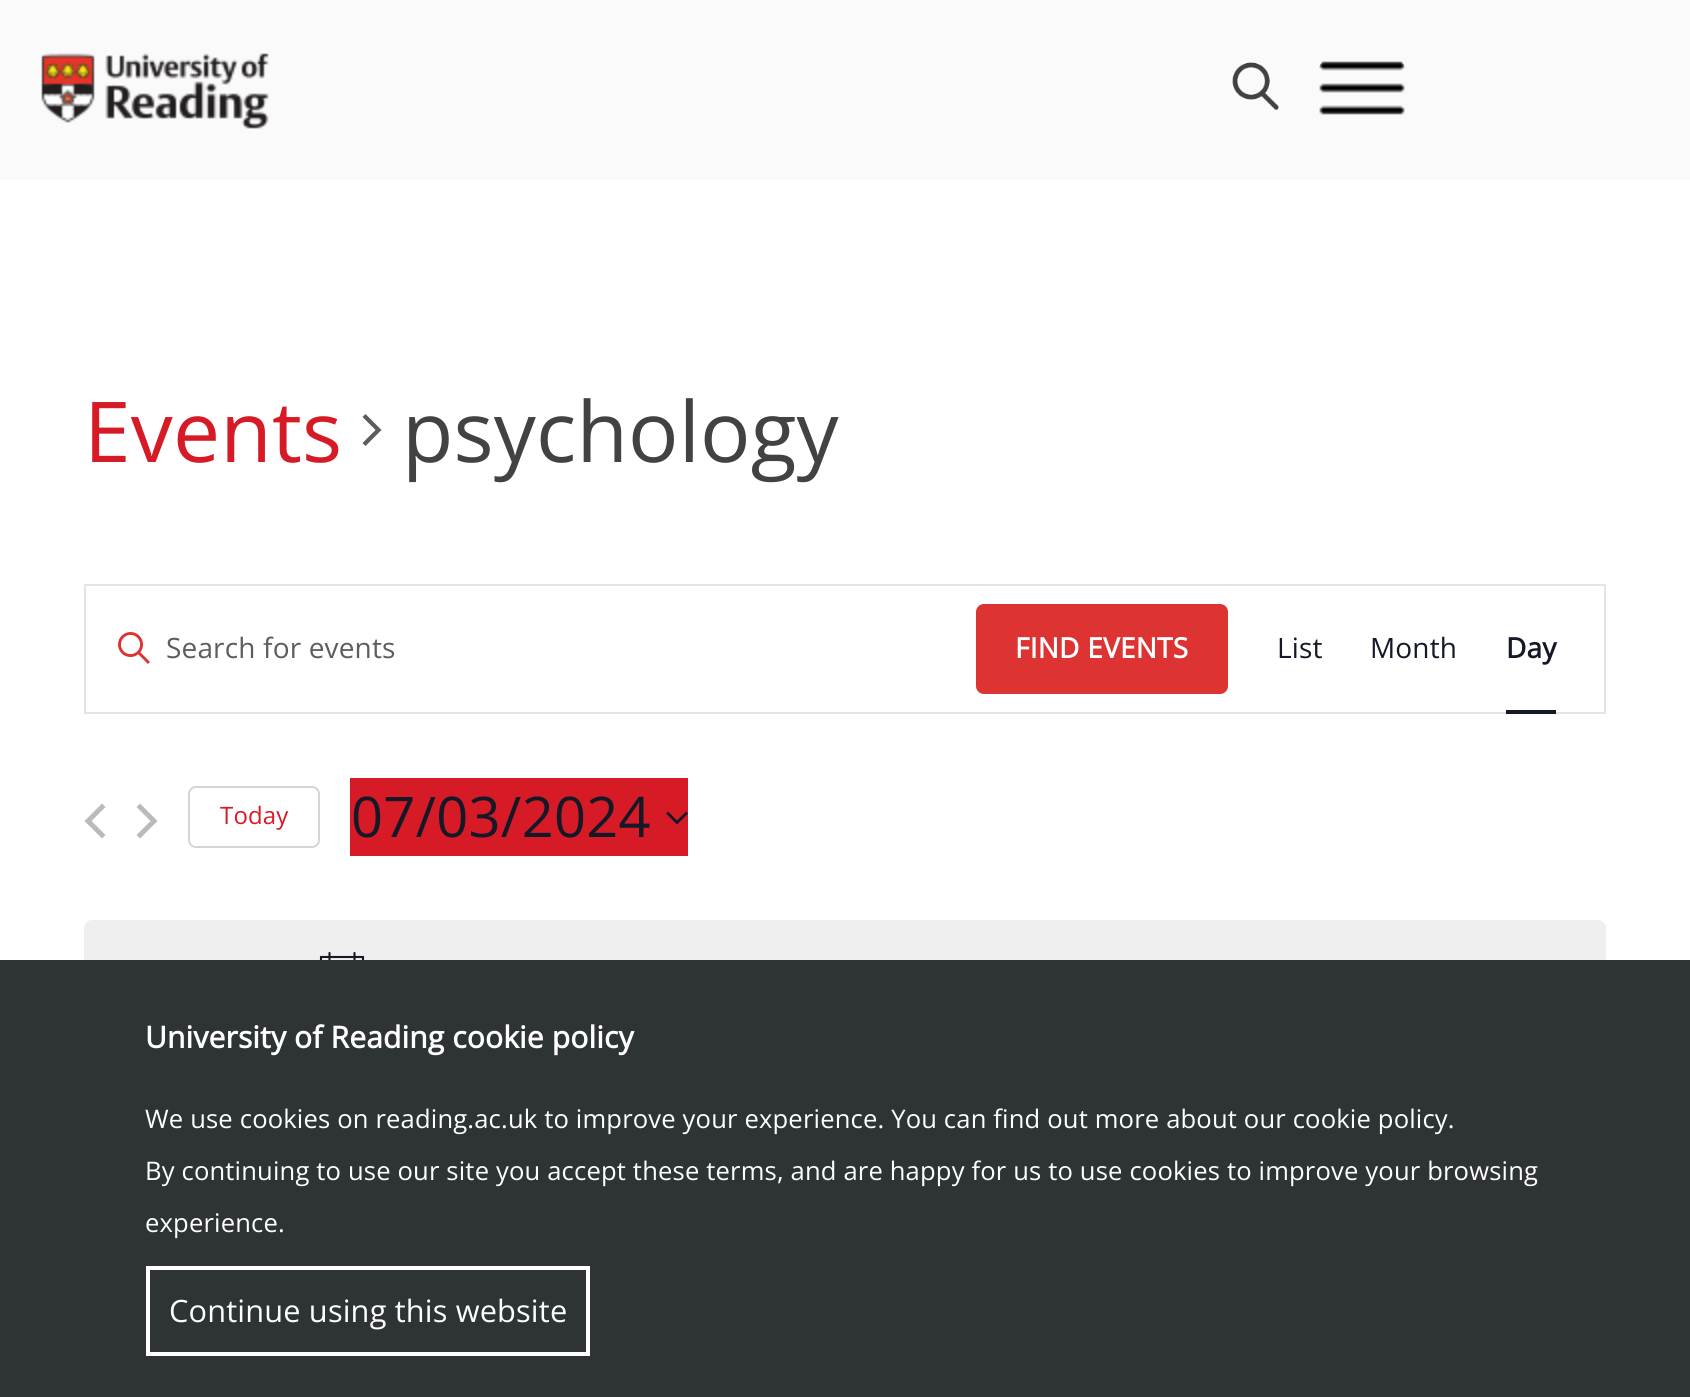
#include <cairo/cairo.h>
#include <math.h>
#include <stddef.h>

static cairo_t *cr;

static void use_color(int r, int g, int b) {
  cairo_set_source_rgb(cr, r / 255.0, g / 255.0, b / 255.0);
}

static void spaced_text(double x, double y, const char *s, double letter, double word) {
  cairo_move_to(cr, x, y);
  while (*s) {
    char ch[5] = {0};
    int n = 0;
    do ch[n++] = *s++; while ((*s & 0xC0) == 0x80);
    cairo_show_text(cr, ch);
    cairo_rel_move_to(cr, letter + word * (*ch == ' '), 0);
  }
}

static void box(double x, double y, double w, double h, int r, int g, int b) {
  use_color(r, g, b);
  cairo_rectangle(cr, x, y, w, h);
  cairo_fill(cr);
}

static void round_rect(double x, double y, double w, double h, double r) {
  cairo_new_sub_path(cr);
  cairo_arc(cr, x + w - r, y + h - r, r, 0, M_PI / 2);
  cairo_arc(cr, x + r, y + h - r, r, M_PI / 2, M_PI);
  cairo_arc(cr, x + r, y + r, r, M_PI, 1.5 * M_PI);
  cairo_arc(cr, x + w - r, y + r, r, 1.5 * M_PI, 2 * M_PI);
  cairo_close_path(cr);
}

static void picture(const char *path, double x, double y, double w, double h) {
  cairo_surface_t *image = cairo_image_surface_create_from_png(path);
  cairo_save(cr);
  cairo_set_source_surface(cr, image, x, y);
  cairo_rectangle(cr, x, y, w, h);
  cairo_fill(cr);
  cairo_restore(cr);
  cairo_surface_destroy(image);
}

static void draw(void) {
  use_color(255, 255, 255);
  cairo_paint(cr);
  box(0, 0, 1690, 180, 251, 250, 250);
  picture("img_01.png", 41, 53, 228, 76);
  picture("img_02.png", 1232, 62, 47, 48);
  picture("img_03.png", 1319, 61, 86, 54);
  use_color(93, 93, 93);
  cairo_new_path(cr);
  cairo_move_to(cr, 362.5, 417);
  cairo_line_to(cr, 365.5, 414);
  cairo_line_to(cr, 381.5, 430);
  cairo_line_to(cr, 365.5, 446);
  cairo_line_to(cr, 362.5, 443);
  cairo_line_to(cr, 375.5, 430);
  cairo_close_path(cr);
  cairo_fill(cr);
  cairo_rectangle(cr, 85, 585, 1520, 128);
  use_color(228, 228, 228);
  cairo_stroke(cr);
  picture("img_04.png", 118, 632, 32, 32);
  use_color(221, 51, 51);
  round_rect(976, 604, 252, 90, 8);
  cairo_fill(cr);
  box(1506, 710, 50, 4, 20, 24, 39);
  use_color(186, 186, 186);
  cairo_new_path(cr);
  cairo_move_to(cr, 105.5, 835);
  cairo_line_to(cr, 102, 838.5);
  cairo_line_to(cr, 84.5, 821);
  cairo_line_to(cr, 102, 803.5);
  cairo_line_to(cr, 105.5, 807);
  cairo_line_to(cr, 91.5, 821);
  cairo_close_path(cr);
  cairo_fill(cr);
  cairo_new_path(cr);
  cairo_move_to(cr, 136.5, 807);
  cairo_line_to(cr, 140, 803.5);
  cairo_line_to(cr, 157.5, 821);
  cairo_line_to(cr, 140, 838.5);
  cairo_line_to(cr, 136.5, 835);
  cairo_line_to(cr, 150.5, 821);
  cairo_close_path(cr);
  cairo_fill(cr);
  round_rect(189, 787, 130, 60, 7);
  use_color(213, 213, 213);
  cairo_stroke(cr);
  box(350, 778, 338, 78, 214, 27, 38);
  use_color(20, 24, 39);
  cairo_set_fill_rule(cr, CAIRO_FILL_RULE_EVEN_ODD);
  cairo_new_path(cr);
  cairo_move_to(cr, 668, 811.5);
  cairo_line_to(cr, 677, 820.5);
  cairo_line_to(cr, 686, 811.5);
  cairo_line_to(cr, 688, 813.5);
  cairo_line_to(cr, 677, 824.5);
  cairo_line_to(cr, 666, 813.5);
  cairo_close_path(cr);
  cairo_fill(cr);
  use_color(239, 239, 240);
  round_rect(84, 920, 1522, 112, 8);
  cairo_fill(cr);
  cairo_new_path(cr);
  cairo_move_to(cr, 321, 957);
  cairo_line_to(cr, 363, 957);
  cairo_line_to(cr, 363, 999);
  cairo_line_to(cr, 321, 999);
  cairo_close_path(cr);
  use_color(20, 24, 39);
  cairo_set_line_width(cr, 2.1);
  cairo_stroke(cr);
  cairo_new_path(cr);
  cairo_move_to(cr, 329.5, 953);
  cairo_line_to(cr, 329.5, 961.5);
  cairo_move_to(cr, 354.5, 953);
  cairo_line_to(cr, 354.5, 961.5);
  cairo_set_line_cap(cr, CAIRO_LINE_CAP_ROUND);
  cairo_stroke(cr);
  box(0, 960, 1690, 437, 46, 51, 54);
  cairo_rectangle(cr, 148, 1268, 440, 86);
  use_color(255, 255, 255);
  cairo_set_line_width(cr, 4);
  cairo_set_line_cap(cr, CAIRO_LINE_CAP_BUTT);
  cairo_stroke(cr);
  cairo_select_font_face(cr, "Open Sans", CAIRO_FONT_SLANT_NORMAL, CAIRO_FONT_WEIGHT_NORMAL);
  cairo_set_font_size(cr, 84);
  use_color(214, 27, 38);
  spaced_text(84, 462, "Events", 0.16, 0);
  use_color(67, 66, 65);
  spaced_text(402, 462, "psychology", 0.16, 0);
  cairo_set_font_size(cr, 28);
  use_color(93, 93, 93);
  spaced_text(166, 658, "Search for events", 0.16, 0);
  cairo_select_font_face(cr, "Open Sans", CAIRO_FONT_SLANT_NORMAL, CAIRO_FONT_WEIGHT_BOLD);
  use_color(255, 255, 255);
  spaced_text(1015, 658, "FIND EVENTS", 0.25, 0);
  cairo_select_font_face(cr, "Open Sans", CAIRO_FONT_SLANT_NORMAL, CAIRO_FONT_WEIGHT_NORMAL);
  use_color(20, 24, 39);
  spaced_text(1277, 658, "List", 0.16, 0);
  spaced_text(1370, 658, "Month", 0.16, 0);
  cairo_select_font_face(cr, "Open Sans", CAIRO_FONT_SLANT_NORMAL, CAIRO_FONT_WEIGHT_BOLD);
  spaced_text(1506, 658, "Day", 0.16, 0);
  cairo_select_font_face(cr, "Open Sans", CAIRO_FONT_SLANT_NORMAL, CAIRO_FONT_WEIGHT_NORMAL);
  cairo_set_font_size(cr, 24);
  use_color(214, 27, 38);
  spaced_text(220, 824, "Today", 0.16, 0);
  cairo_set_font_size(cr, 56);
  use_color(20, 24, 39);
  spaced_text(351, 837, "07/03/2024", 0.25, 0);
  cairo_select_font_face(cr, "Open Sans", CAIRO_FONT_SLANT_NORMAL, CAIRO_FONT_WEIGHT_BOLD);
  cairo_set_font_size(cr, 30);
  use_color(255, 255, 255);
  spaced_text(145, 1048, "University of Reading cookie policy", 0.16, 0);
  cairo_select_font_face(cr, "Open Sans", CAIRO_FONT_SLANT_NORMAL, CAIRO_FONT_WEIGHT_NORMAL);
  cairo_set_font_size(cr, 25.6);
  spaced_text(145, 1128, "We use cookies on reading.ac.uk to improve your experience. You can find out more about our cookie policy.", 0.16, 0);
  spaced_text(145, 1180, "By continuing to use our site you accept these terms, and are happy for us to use cookies to improve your browsing", 0.16, 0);
  spaced_text(145, 1232, "experience.", 0.16, 0);
  cairo_set_font_size(cr, 30.75);
  spaced_text(169, 1322, "Continue using this website", 0.16, 0);
}

int main(void) {
  cairo_surface_t *surface = cairo_image_surface_create(CAIRO_FORMAT_RGB24, 1690, 1397);
  cr = cairo_create(surface);
  cairo_font_options_t *options = cairo_font_options_create();
  cairo_font_options_set_hint_metrics(options, CAIRO_HINT_METRICS_OFF);
  cairo_font_options_set_hint_style(options, CAIRO_HINT_STYLE_NONE);
  cairo_set_font_options(cr, options);
  cairo_set_miter_limit(cr, 4);
  draw();
  cairo_surface_write_to_png(surface, "out.png");
  cairo_font_options_destroy(options);
  cairo_destroy(cr);
  cairo_surface_destroy(surface);
  return 0;
}
